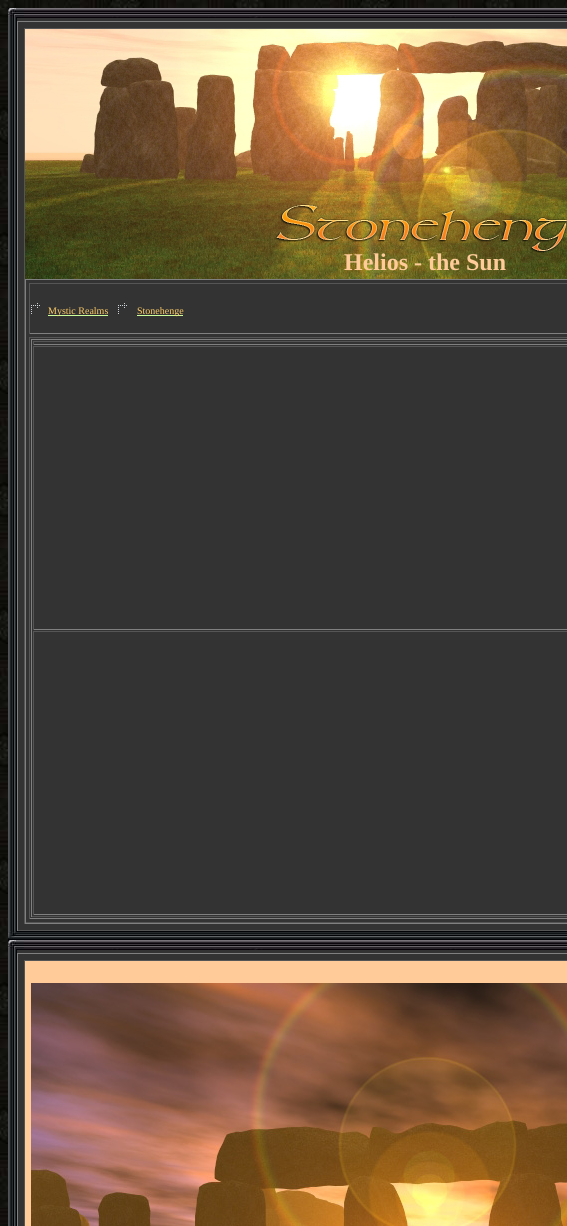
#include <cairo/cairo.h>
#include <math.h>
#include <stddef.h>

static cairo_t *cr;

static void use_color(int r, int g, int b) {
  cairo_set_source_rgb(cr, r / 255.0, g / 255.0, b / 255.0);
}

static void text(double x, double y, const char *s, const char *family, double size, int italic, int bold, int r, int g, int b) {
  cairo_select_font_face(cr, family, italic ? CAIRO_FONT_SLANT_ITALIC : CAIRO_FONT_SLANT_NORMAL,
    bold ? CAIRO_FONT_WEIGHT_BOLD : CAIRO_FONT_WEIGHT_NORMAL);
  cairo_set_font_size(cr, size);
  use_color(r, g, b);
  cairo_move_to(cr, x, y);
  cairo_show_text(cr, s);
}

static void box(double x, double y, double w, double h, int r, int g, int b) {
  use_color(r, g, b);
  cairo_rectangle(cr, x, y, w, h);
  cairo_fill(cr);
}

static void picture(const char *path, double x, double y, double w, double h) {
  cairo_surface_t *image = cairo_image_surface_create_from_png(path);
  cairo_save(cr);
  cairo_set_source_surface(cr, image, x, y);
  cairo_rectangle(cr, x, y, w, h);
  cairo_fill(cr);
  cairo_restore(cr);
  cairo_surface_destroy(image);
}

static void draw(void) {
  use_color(255, 255, 255);
  cairo_paint(cr);
  picture("img_01.png", 0, 0, 567, 1226);
  picture("img_02.png", 8, 8, 559, 10);
  picture("img_03.png", 8, 18, 9, 913);
  box(17, 18, 550, 912, 51, 51, 51);
  box(17, 21, 550, 1, 128, 128, 128);
  box(17, 930, 550, 1, 85, 85, 85);
  box(17, 21, 1, 910, 128, 128, 128);
  box(24, 28, 543, 1, 85, 85, 85);
  box(24, 923, 543, 1, 128, 128, 128);
  box(24, 28, 1, 896, 85, 85, 85);
  picture("img_04.png", 25, 29, 542, 250);
  box(25, 279, 542, 1, 128, 128, 128);
  box(25, 922, 542, 1, 85, 85, 85);
  box(25, 279, 1, 644, 128, 128, 128);
  box(29, 283, 538, 1, 85, 85, 85);
  box(29, 333, 538, 1, 128, 128, 128);
  box(29, 283, 1, 51, 85, 85, 85);
  picture("img_05.png", 31, 303, 9, 11);
  box(48, 315, 60, 1, 204, 255, 153);
  picture("img_05.png", 118, 303, 9, 11);
  box(137, 315, 46, 1, 204, 255, 153);
  box(29, 337, 538, 1, 85, 85, 85);
  box(29, 918, 538, 1, 128, 128, 128);
  box(29, 337, 1, 582, 85, 85, 85);
  box(31, 339, 536, 1, 128, 128, 128);
  box(31, 916, 536, 1, 85, 85, 85);
  box(31, 339, 1, 578, 128, 128, 128);
  box(33, 341, 534, 1, 85, 85, 85);
  box(33, 344, 534, 1, 128, 128, 128);
  box(33, 341, 1, 4, 85, 85, 85);
  box(33, 346, 534, 1, 85, 85, 85);
  box(33, 629, 534, 1, 128, 128, 128);
  box(33, 346, 1, 284, 85, 85, 85);
  box(33, 631, 534, 1, 85, 85, 85);
  box(33, 914, 534, 1, 128, 128, 128);
  box(33, 631, 1, 284, 85, 85, 85);
  picture("img_06.png", 8, 931, 559, 9);
  picture("img_02.png", 8, 940, 559, 10);
  picture("img_07.png", 8, 950, 9, 276);
  box(17, 950, 550, 276, 51, 51, 51);
  box(17, 953, 550, 1, 128, 128, 128);
  box(17, 953, 1, 273, 128, 128, 128);
  box(25, 961, 542, 265, 255, 204, 153);
  box(24, 960, 543, 1, 85, 85, 85);
  box(24, 960, 1, 266, 85, 85, 85);
  picture("img_08.png", 31, 983, 536, 243);
  text(344, 270, "Helios - the Sun", "Liberation Serif", 24, 0, 1, 255, 204, 153);
  text(48, 314, "Mystic Realms", "Liberation Serif", 10, 0, 0, 255, 204, 102);
  text(137, 314, "Stonehenge", "Liberation Serif", 10, 0, 0, 255, 204, 102);
}

int main(void) {
  cairo_surface_t *surface = cairo_image_surface_create(CAIRO_FORMAT_RGB24, 567, 1226);
  cr = cairo_create(surface);
  cairo_font_options_t *options = cairo_font_options_create();
  cairo_font_options_set_hint_metrics(options, CAIRO_HINT_METRICS_OFF);
  cairo_font_options_set_hint_style(options, CAIRO_HINT_STYLE_NONE);
  cairo_set_font_options(cr, options);
  cairo_set_miter_limit(cr, 4);
  draw();
  cairo_surface_write_to_png(surface, "out.png");
  cairo_font_options_destroy(options);
  cairo_destroy(cr);
  cairo_surface_destroy(surface);
  return 0;
}
